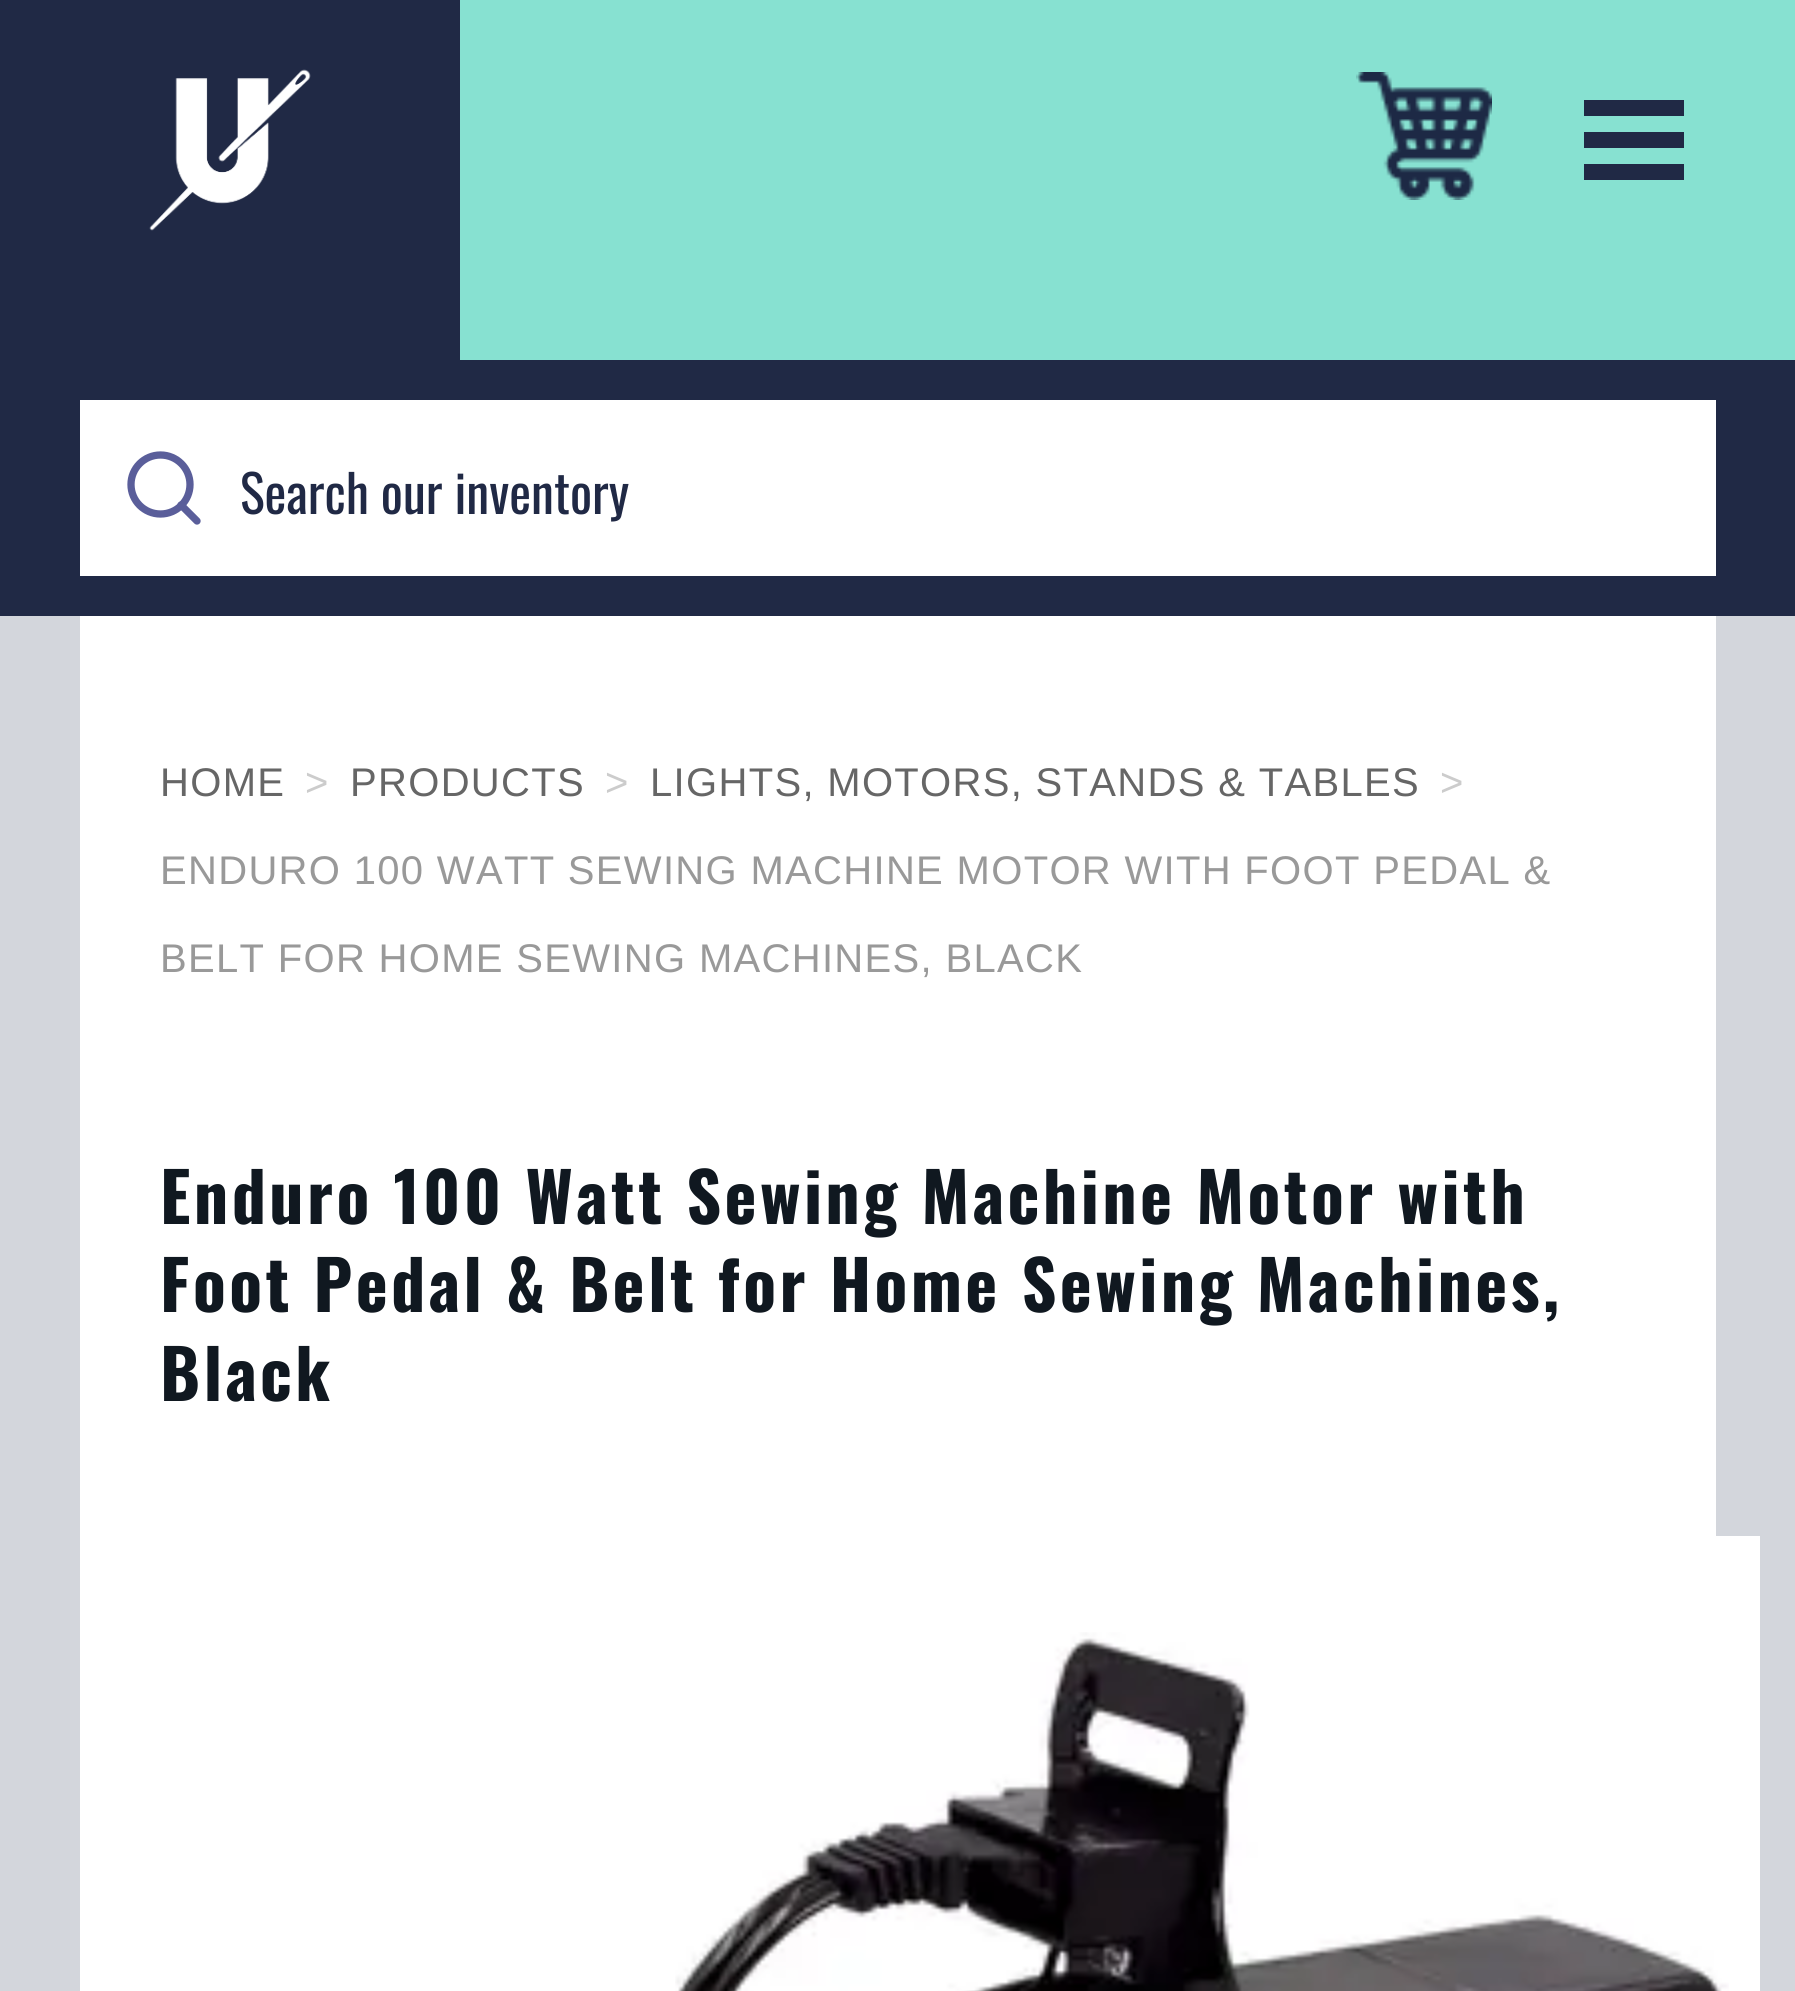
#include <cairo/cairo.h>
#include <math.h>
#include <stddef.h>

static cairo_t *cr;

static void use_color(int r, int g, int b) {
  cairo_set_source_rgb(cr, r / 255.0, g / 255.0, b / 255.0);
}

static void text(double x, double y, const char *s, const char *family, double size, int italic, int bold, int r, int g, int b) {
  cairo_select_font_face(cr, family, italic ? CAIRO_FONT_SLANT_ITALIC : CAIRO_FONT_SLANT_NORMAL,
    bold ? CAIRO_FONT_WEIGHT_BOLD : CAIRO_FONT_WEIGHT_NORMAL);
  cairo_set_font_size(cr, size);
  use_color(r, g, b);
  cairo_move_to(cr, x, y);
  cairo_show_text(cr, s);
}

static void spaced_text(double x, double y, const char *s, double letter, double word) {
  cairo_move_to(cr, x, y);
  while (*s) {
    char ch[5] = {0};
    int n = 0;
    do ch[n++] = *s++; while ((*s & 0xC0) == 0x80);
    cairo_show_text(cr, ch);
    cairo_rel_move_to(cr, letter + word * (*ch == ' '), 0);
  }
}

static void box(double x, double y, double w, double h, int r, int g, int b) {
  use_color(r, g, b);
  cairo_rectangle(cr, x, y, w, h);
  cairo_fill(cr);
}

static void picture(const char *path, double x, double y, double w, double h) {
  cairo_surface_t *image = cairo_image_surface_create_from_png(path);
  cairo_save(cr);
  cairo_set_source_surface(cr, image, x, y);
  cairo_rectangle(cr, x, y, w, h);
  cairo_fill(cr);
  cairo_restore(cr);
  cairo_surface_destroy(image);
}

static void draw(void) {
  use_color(135, 225, 209);
  cairo_paint(cr);
  box(0, 0, 460, 360, 32, 41, 69);
  picture("img_01.png", 149, 69, 162, 162);
  picture("img_02.png", 1356, 72, 136, 128);
  box(1584, 100, 100, 16, 32, 41, 69);
  box(1584, 132, 100, 16, 32, 41, 69);
  box(1584, 164, 100, 16, 32, 41, 69);
  box(0, 360, 1795, 256, 32, 41, 69);
  box(80, 400, 1636, 176, 255, 255, 255);
  cairo_arc(cr, 160.5, 484.5, 29.5, 0, 2 * M_PI);
  use_color(90, 94, 154);
  cairo_set_line_width(cr, 7.3);
  cairo_stroke(cr);
  cairo_new_path(cr);
  cairo_move_to(cr, 197, 521);
  cairo_line_to(cr, 181, 505);
  cairo_set_line_cap(cr, CAIRO_LINE_CAP_ROUND);
  cairo_set_line_join(cr, CAIRO_LINE_JOIN_ROUND);
  cairo_stroke(cr);
  box(0, 616, 1795, 1375, 211, 214, 220);
  box(80, 616, 1636, 1375, 255, 255, 255);
  box(1716, 1536, 44, 455, 255, 255, 255);
  picture("img_03.png", 675, 1632, 1054, 359);
  text(240, 514, "Search our inventory", "Oswald", 52, 0, 0, 32, 41, 69);
  cairo_select_font_face(cr, "Liberation Sans", CAIRO_FONT_SLANT_NORMAL, CAIRO_FONT_WEIGHT_NORMAL);
  cairo_set_font_size(cr, 40);
  use_color(102, 102, 102);
  spaced_text(160, 796, "HOME", 1.32, 0);
  use_color(204, 204, 204);
  spaced_text(305, 796, ">", 1.32, 0);
  use_color(102, 102, 102);
  spaced_text(350, 796, "PRODUCTS", 1.32, 0);
  use_color(204, 204, 204);
  spaced_text(605, 796, ">", 1.32, 0);
  use_color(102, 102, 102);
  spaced_text(650, 796, "LIGHTS, MOTORS, STANDS & TABLES", 1.32, 0);
  use_color(204, 204, 204);
  spaced_text(1440, 796, ">", 1.32, 0);
  use_color(153, 153, 153);
  spaced_text(160, 884, "ENDURO 100 WATT SEWING MACHINE MOTOR WITH FOOT PEDAL &", 1.32, 0);
  spaced_text(160, 972, "BELT FOR HOME SEWING MACHINES, BLACK", 1.32, 0);
  cairo_select_font_face(cr, "Oswald", CAIRO_FONT_SLANT_NORMAL, CAIRO_FONT_WEIGHT_BOLD);
  cairo_set_font_size(cr, 68);
  use_color(16, 24, 32);
  spaced_text(160, 1224, "Enduro 100 Watt Sewing Machine Motor with", 3.4, 0);
  spaced_text(160, 1312, "Foot Pedal & Belt for Home Sewing Machines,", 3.4, 0);
  spaced_text(160, 1401, "Black", 3.4, 0);
}

int main(void) {
  cairo_surface_t *surface = cairo_image_surface_create(CAIRO_FORMAT_RGB24, 1795, 1991);
  cr = cairo_create(surface);
  cairo_font_options_t *options = cairo_font_options_create();
  cairo_font_options_set_hint_metrics(options, CAIRO_HINT_METRICS_OFF);
  cairo_font_options_set_hint_style(options, CAIRO_HINT_STYLE_NONE);
  cairo_set_font_options(cr, options);
  cairo_set_miter_limit(cr, 4);
  draw();
  cairo_surface_write_to_png(surface, "out.png");
  cairo_font_options_destroy(options);
  cairo_destroy(cr);
  cairo_surface_destroy(surface);
  return 0;
}
